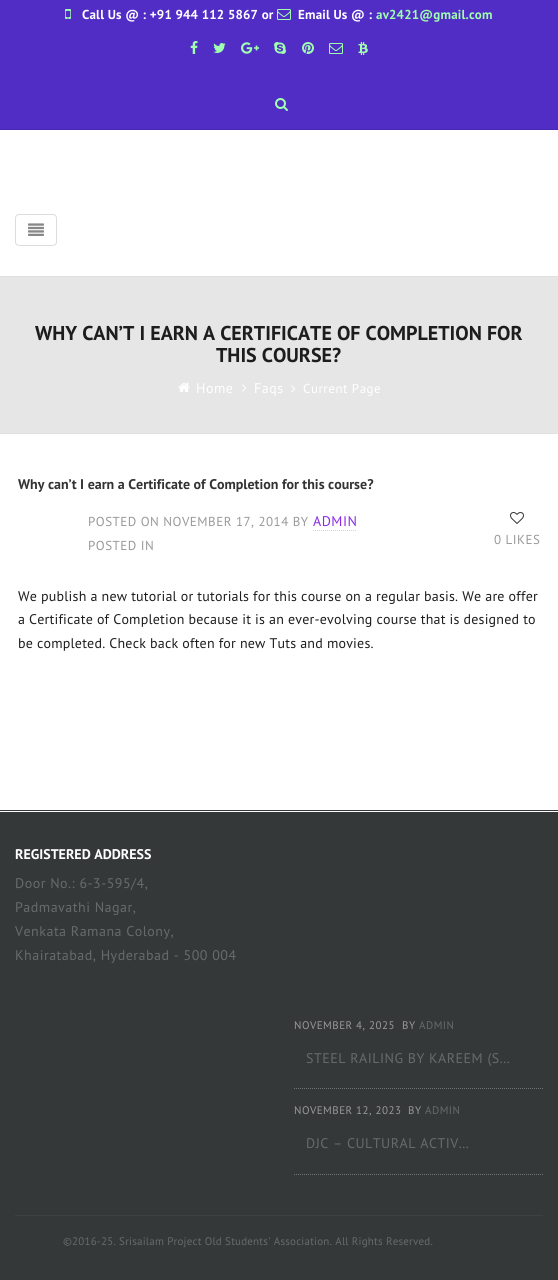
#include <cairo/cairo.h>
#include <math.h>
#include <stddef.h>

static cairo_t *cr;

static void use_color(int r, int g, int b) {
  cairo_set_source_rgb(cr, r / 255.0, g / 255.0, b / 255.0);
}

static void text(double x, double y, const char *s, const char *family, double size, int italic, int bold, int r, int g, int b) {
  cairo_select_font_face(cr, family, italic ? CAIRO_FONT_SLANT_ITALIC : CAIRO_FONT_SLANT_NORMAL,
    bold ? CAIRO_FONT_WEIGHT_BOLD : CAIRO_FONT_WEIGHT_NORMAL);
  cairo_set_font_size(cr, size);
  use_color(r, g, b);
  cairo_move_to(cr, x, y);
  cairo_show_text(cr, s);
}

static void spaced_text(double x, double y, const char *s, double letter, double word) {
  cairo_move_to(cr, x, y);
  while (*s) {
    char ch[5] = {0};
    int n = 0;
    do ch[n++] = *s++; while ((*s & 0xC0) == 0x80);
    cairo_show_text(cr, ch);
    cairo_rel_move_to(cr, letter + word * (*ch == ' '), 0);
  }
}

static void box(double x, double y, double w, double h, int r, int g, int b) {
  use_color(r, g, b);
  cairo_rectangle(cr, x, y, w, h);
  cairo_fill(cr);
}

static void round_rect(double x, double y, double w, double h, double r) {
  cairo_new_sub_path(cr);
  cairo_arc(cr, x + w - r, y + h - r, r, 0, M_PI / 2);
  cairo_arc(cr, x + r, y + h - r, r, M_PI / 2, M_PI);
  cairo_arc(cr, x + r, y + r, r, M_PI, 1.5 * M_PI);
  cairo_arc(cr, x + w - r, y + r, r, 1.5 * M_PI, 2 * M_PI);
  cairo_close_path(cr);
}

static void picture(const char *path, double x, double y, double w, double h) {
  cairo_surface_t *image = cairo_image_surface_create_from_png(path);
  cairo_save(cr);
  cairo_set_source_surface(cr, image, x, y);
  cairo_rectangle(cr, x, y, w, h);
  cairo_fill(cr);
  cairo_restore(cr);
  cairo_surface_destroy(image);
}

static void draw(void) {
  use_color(255, 255, 255);
  cairo_paint(cr);
  box(0, 0, 558, 129, 81, 45, 198);
  box(0, 129, 558, 1, 73, 41, 178);
  picture("img_01.png", 65, 9, 6, 10);
  picture("img_02.png", 277, 9, 14, 11);
  picture("img_03.png", 190, 41, 8, 13);
  picture("img_04.png", 213, 43, 13, 10);
  picture("img_05.png", 241, 42, 18, 12);
  picture("img_06.png", 274, 42, 12, 12);
  picture("img_07.png", 302, 42, 12, 12);
  picture("img_02.png", 329, 43, 14, 11);
  picture("img_08.png", 358, 42, 10, 13);
  picture("img_09.png", 275, 98, 13, 13);
  round_rect(15.5, 214.5, 41, 31, 3.5);
  use_color(221, 221, 221);
  cairo_set_line_width(cr, 1);
  cairo_stroke(cr);
  picture("img_10.png", 28, 223, 16, 13);
  box(0, 277, 558, 156, 230, 230, 230);
  box(0, 276, 558, 1, 224, 224, 224);
  box(0, 433, 558, 1, 224, 224, 224);
  picture("img_11.png", 178, 382, 12, 10);
  picture("img_12.png", 242, 384, 4, 8);
  picture("img_12.png", 291, 385, 4, 8);
  cairo_new_path(cr);
  cairo_move_to(cr, 313, 530.5);
  cairo_line_to(cr, 357, 530.5);
  use_color(213, 213, 213);
  cairo_set_dash(cr, (double[]){1, 1}, 2, 0);
  cairo_stroke(cr);
  picture("img_13.png", 510, 512, 14, 12);
  box(0, 812, 558, 468, 53, 56, 57);
  box(0, 810, 558, 1, 53, 56, 57);
  cairo_new_path(cr);
  cairo_move_to(cr, 294, 1088.5);
  cairo_line_to(cr, 543, 1088.5);
  use_color(114, 116, 116);
  cairo_stroke(cr);
  cairo_new_path(cr);
  cairo_move_to(cr, 294, 1174.5);
  cairo_line_to(cr, 543, 1174.5);
  cairo_stroke(cr);
  box(15, 1215, 528, 1, 63, 66, 67);
  cairo_select_font_face(cr, "PT Sans", CAIRO_FONT_SLANT_NORMAL, CAIRO_FONT_WEIGHT_BOLD);
  cairo_set_font_size(cr, 13);
  use_color(255, 255, 255);
  spaced_text(82, 19, "Call Us @ : +91 944 112 5867 or", 0.2, 0);
  spaced_text(298, 19, "Email Us @ :", 0.2, 0);
  use_color(159, 254, 176);
  spaced_text(376, 19, "av2421@gmail.com", 0.2, 0);
  text(35, 340, "WHY CAN’T I EARN A CERTIFICATE OF COMPLETION FOR", "PT Sans", 20, 0, 1, 29, 29, 29);
  text(216, 362, "THIS COURSE?", "PT Sans", 20, 0, 1, 29, 29, 29);
  cairo_select_font_face(cr, "PT Sans", CAIRO_FONT_SLANT_NORMAL, CAIRO_FONT_WEIGHT_NORMAL);
  cairo_set_font_size(cr, 14);
  use_color(255, 255, 255);
  spaced_text(196, 393, "Home", 0.5, 0);
  spaced_text(254, 393, "Faqs", 0.5, 0);
  cairo_set_font_size(cr, 13);
  spaced_text(303, 393, "Current Page", 0.5, 0);
  text(18, 489, "Why can’t I earn a Certificate of Completion for this course?", "PT Sans", 14, 0, 1, 51, 51, 51);
  cairo_select_font_face(cr, "PT Sans", CAIRO_FONT_SLANT_NORMAL, CAIRO_FONT_WEIGHT_NORMAL);
  cairo_set_font_size(cr, 13);
  use_color(153, 153, 153);
  spaced_text(88, 526, "POSTED ON NOVEMBER 17, 2014 BY", 0.5, 0);
  cairo_set_font_size(cr, 14);
  use_color(138, 43, 226);
  spaced_text(313, 526, "ADMIN", 0.5, 0);
  cairo_set_font_size(cr, 13);
  use_color(153, 153, 153);
  spaced_text(88, 550, "POSTED IN", 0.5, 0);
  spaced_text(494, 544, "0 LIKES", 0.5, 0);
  cairo_set_font_size(cr, 14);
  use_color(29, 29, 29);
  spaced_text(18, 601, "We publish a new tutorial or tutorials for this course on a regular basis. We are offer", 0.2, 0);
  spaced_text(18, 624, "a Certificate of Completion because it is an ever-evolving course that is designed to", 0.2, 0);
  spaced_text(18, 648, "be completed. Check back often for new Tuts and movies.", 0.2, 0);
  text(15, 859, "REGISTERED ADDRESS", "PT Sans", 14, 0, 1, 255, 255, 255);
  cairo_select_font_face(cr, "PT Sans", CAIRO_FONT_SLANT_NORMAL, CAIRO_FONT_WEIGHT_NORMAL);
  use_color(101, 107, 107);
  spaced_text(15, 888, "Door No.: 6-3-595/4,", 0.5, 0);
  spaced_text(15, 912, "Padmavathi Nagar,", 0.5, 0);
  spaced_text(15, 936, "Venkata Ramana Colony,", 0.5, 0);
  spaced_text(15, 960, "Khairatabad, Hyderabad - 500 004", 0.5, 0);
  cairo_set_font_size(cr, 11);
  use_color(153, 153, 153);
  spaced_text(294, 1029, "NOVEMBER 4, 2025", 0.5, 0);
  spaced_text(402, 1029, "BY", 0.5, 0);
  use_color(101, 107, 107);
  spaced_text(419, 1029, "ADMIN", 0.5, 0);
  cairo_set_font_size(cr, 14);
  spaced_text(306, 1063, "STEEL RAILING BY KAREEM (S...", 0.5, 0);
  cairo_set_font_size(cr, 11);
  use_color(153, 153, 153);
  spaced_text(294, 1114, "NOVEMBER 12, 2023", 0.5, 0);
  spaced_text(408, 1114, "BY", 0.5, 0);
  use_color(101, 107, 107);
  spaced_text(425, 1114, "ADMIN", 0.5, 0);
  cairo_set_font_size(cr, 14);
  spaced_text(306, 1148, "DJC – CULTURAL ACTIV...", 0.5, 0);
  cairo_set_font_size(cr, 11);
  spaced_text(63, 1245, "©2016-25. Srisailam Project Old Students' Association. All Rights Reserved.", 0.2, 0);
}

int main(void) {
  cairo_surface_t *surface = cairo_image_surface_create(CAIRO_FORMAT_RGB24, 558, 1280);
  cr = cairo_create(surface);
  cairo_font_options_t *options = cairo_font_options_create();
  cairo_font_options_set_hint_metrics(options, CAIRO_HINT_METRICS_OFF);
  cairo_font_options_set_hint_style(options, CAIRO_HINT_STYLE_NONE);
  cairo_set_font_options(cr, options);
  cairo_set_miter_limit(cr, 4);
  draw();
  cairo_surface_write_to_png(surface, "out.png");
  cairo_font_options_destroy(options);
  cairo_destroy(cr);
  cairo_surface_destroy(surface);
  return 0;
}
